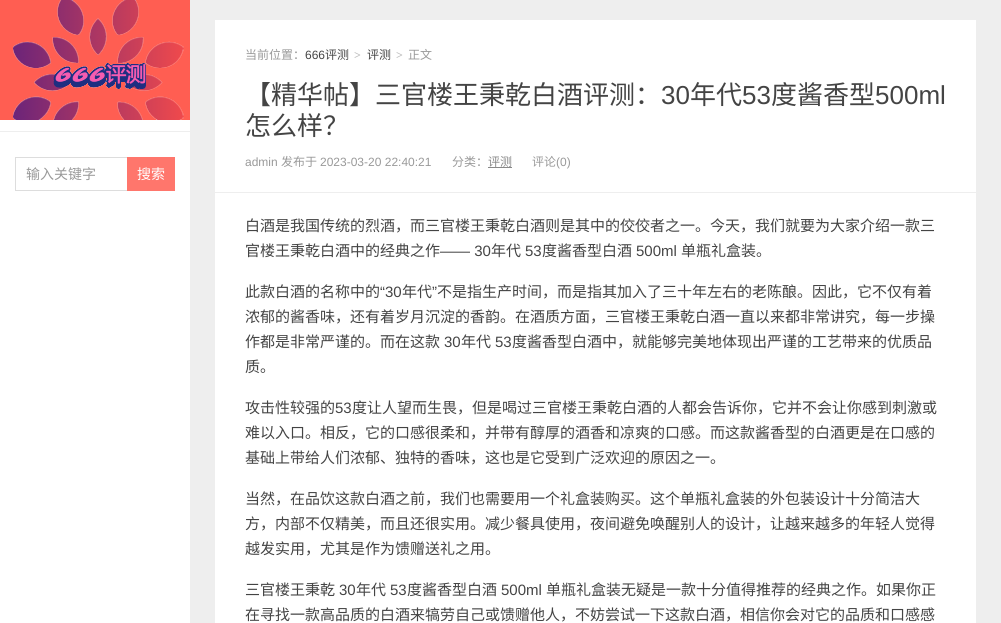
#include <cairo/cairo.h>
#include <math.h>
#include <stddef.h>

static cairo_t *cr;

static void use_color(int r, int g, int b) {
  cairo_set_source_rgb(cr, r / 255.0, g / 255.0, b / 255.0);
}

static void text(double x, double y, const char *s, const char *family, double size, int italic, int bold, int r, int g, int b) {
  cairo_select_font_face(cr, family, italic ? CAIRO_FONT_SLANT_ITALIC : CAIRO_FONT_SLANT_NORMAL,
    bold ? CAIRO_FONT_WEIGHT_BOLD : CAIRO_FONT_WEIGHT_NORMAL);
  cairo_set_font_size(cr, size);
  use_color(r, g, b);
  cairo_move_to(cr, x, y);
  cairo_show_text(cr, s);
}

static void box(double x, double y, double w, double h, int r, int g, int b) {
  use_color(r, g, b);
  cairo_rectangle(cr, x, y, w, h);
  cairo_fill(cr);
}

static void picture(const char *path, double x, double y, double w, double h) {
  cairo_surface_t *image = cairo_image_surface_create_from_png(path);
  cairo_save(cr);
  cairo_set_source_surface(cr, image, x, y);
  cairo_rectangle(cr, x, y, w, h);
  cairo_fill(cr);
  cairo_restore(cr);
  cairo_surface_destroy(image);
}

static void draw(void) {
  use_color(238, 238, 238);
  cairo_paint(cr);
  box(0, 120, 190, 503, 255, 255, 255);
  box(0, 0, 190, 120, 255, 94, 82);
  picture("img_01.png", 13, 0, 171, 120);
  box(0, 131, 190, 1, 238, 238, 238);
  box(15, 157, 112, 1, 221, 221, 221);
  box(15, 190, 112, 1, 221, 221, 221);
  box(15, 157, 1, 34, 221, 221, 221);
  box(127, 157, 48, 34, 255, 118, 108);
  box(215, 20, 761, 172, 255, 255, 255);
  box(488, 167, 24, 1, 136, 136, 136);
  box(215, 193, 761, 430, 255, 255, 255);
  text(26, 179, "输入关键字", "Noto Sans CJK SC", 14, 0, 0, 153, 153, 153);
  text(137, 179, "搜索", "Noto Sans CJK SC", 14, 0, 0, 255, 255, 255);
  text(245, 59, "当前位置：", "Noto Sans CJK SC", 12, 0, 0, 153, 153, 153);
  text(305, 59, "666", "Liberation Sans", 12, 0, 0, 68, 68, 68);
  text(325, 59, "评测", "Noto Sans CJK SC", 12, 0, 0, 68, 68, 68);
  text(354, 59, ">", "Liberation Serif", 12, 0, 1, 187, 187, 187);
  text(367, 59, "评测", "Noto Sans CJK SC", 12, 0, 0, 68, 68, 68);
  text(396, 59, ">", "Liberation Serif", 12, 0, 1, 187, 187, 187);
  text(408, 59, "正文", "Noto Sans CJK SC", 12, 0, 0, 153, 153, 153);
  text(245, 104, "【精华帖】三官楼王秉乾白酒评测：", "Noto Sans CJK SC", 26, 0, 0, 68, 68, 68);
  text(661, 104, "30", "Liberation Sans", 26, 0, 0, 68, 68, 68);
  text(690, 104, "年代", "Noto Sans CJK SC", 26, 0, 0, 68, 68, 68);
  text(742, 104, "53", "Liberation Sans", 26, 0, 0, 68, 68, 68);
  text(771, 104, "度酱香型", "Noto Sans CJK SC", 26, 0, 0, 68, 68, 68);
  text(875, 104, "500ml", "Liberation Sans", 26, 0, 0, 68, 68, 68);
  text(245, 135, "怎么样？", "Noto Sans CJK SC", 26, 0, 0, 68, 68, 68);
  text(245, 166, "admin", "Liberation Sans", 12, 0, 0, 153, 153, 153);
  text(281, 166, "发布于", "Noto Sans CJK SC", 12, 0, 0, 153, 153, 153);
  text(320, 166, "2023-03-20 22:40:21", "Liberation Sans", 12, 0, 0, 153, 153, 153);
  text(452, 166, "分类：", "Noto Sans CJK SC", 12, 0, 0, 153, 153, 153);
  text(488, 166, "评测", "Noto Sans CJK SC", 12, 0, 0, 136, 136, 136);
  text(532, 166, "评论", "Noto Sans CJK SC", 12, 0, 0, 153, 153, 153);
  text(556, 166, "(0)", "Liberation Sans", 12, 0, 0, 153, 153, 153);
  text(245, 231, "白酒是我国传统的烈酒，而三官楼王秉乾白酒则是其中的佼佼者之一。今天，我们就要为大家介绍一款三", "Noto Sans CJK SC", 15, 0, 0, 68, 68, 68);
  text(245, 256, "官楼王秉乾白酒中的经典之作", "Noto Sans CJK SC", 15, 0, 0, 68, 68, 68);
  text(440, 256, "—— 30", "Liberation Sans", 15, 0, 0, 68, 68, 68);
  text(491, 256, "年代", "Noto Sans CJK SC", 15, 0, 0, 68, 68, 68);
  text(525, 256, "53", "Liberation Sans", 15, 0, 0, 68, 68, 68);
  text(542, 256, "度酱香型白酒", "Noto Sans CJK SC", 15, 0, 0, 68, 68, 68);
  text(636, 256, "500ml", "Liberation Sans", 15, 0, 0, 68, 68, 68);
  text(681, 256, "单瓶礼盒装。", "Noto Sans CJK SC", 15, 0, 0, 68, 68, 68);
  text(245, 297, "此款白酒的名称中的", "Noto Sans CJK SC", 15, 0, 0, 68, 68, 68);
  text(380, 297, "“30", "Liberation Sans", 15, 0, 0, 68, 68, 68);
  text(402, 297, "年代", "Noto Sans CJK SC", 15, 0, 0, 68, 68, 68);
  text(432, 297, "”", "Liberation Sans", 15, 0, 0, 68, 68, 68);
  text(437, 297, "不是指生产时间，而是指其加入了三十年左右的老陈酿。因此，它不仅有着", "Noto Sans CJK SC", 15, 0, 0, 68, 68, 68);
  text(245, 322, "浓郁的酱香味，还有着岁月沉淀的香韵。在酒质方面，三官楼王秉乾白酒一直以来都非常讲究，每一步操", "Noto Sans CJK SC", 15, 0, 0, 68, 68, 68);
  text(245, 347, "作都是非常严谨的。而在这款", "Noto Sans CJK SC", 15, 0, 0, 68, 68, 68);
  text(444, 347, "30", "Liberation Sans", 15, 0, 0, 68, 68, 68);
  text(461, 347, "年代", "Noto Sans CJK SC", 15, 0, 0, 68, 68, 68);
  text(495, 347, "53", "Liberation Sans", 15, 0, 0, 68, 68, 68);
  text(512, 347, "度酱香型白酒中，就能够完美地体现出严谨的工艺带来的优质品", "Noto Sans CJK SC", 15, 0, 0, 68, 68, 68);
  text(245, 372, "质。", "Noto Sans CJK SC", 15, 0, 0, 68, 68, 68);
  text(245, 413, "攻击性较强的", "Noto Sans CJK SC", 15, 0, 0, 68, 68, 68);
  text(335, 413, "53", "Liberation Sans", 15, 0, 0, 68, 68, 68);
  text(352, 413, "度让人望而生畏，但是喝过三官楼王秉乾白酒的人都会告诉你，它并不会让你感到刺激或", "Noto Sans CJK SC", 15, 0, 0, 68, 68, 68);
  text(245, 438, "难以入口。相反，它的口感很柔和，并带有醇厚的酒香和凉爽的口感。而这款酱香型的白酒更是在口感的", "Noto Sans CJK SC", 15, 0, 0, 68, 68, 68);
  text(245, 463, "基础上带给人们浓郁、独特的香味，这也是它受到广泛欢迎的原因之一。", "Noto Sans CJK SC", 15, 0, 0, 68, 68, 68);
  text(245, 504, "当然，在品饮这款白酒之前，我们也需要用一个礼盒装购买。这个单瓶礼盒装的外包装设计十分简洁大", "Noto Sans CJK SC", 15, 0, 0, 68, 68, 68);
  text(245, 529, "方，内部不仅精美，而且还很实用。减少餐具使用，夜间避免唤醒别人的设计，让越来越多的年轻人觉得", "Noto Sans CJK SC", 15, 0, 0, 68, 68, 68);
  text(245, 554, "越发实用，尤其是作为馈赠送礼之用。", "Noto Sans CJK SC", 15, 0, 0, 68, 68, 68);
  text(245, 595, "三官楼王秉乾", "Noto Sans CJK SC", 15, 0, 0, 68, 68, 68);
  text(339, 595, "30", "Liberation Sans", 15, 0, 0, 68, 68, 68);
  text(356, 595, "年代", "Noto Sans CJK SC", 15, 0, 0, 68, 68, 68);
  text(390, 595, "53", "Liberation Sans", 15, 0, 0, 68, 68, 68);
  text(407, 595, "度酱香型白酒", "Noto Sans CJK SC", 15, 0, 0, 68, 68, 68);
  text(501, 595, "500ml", "Liberation Sans", 15, 0, 0, 68, 68, 68);
  text(546, 595, "单瓶礼盒装无疑是一款十分值得推荐的经典之作。如果你正", "Noto Sans CJK SC", 15, 0, 0, 68, 68, 68);
  text(245, 620, "在寻找一款高品质的白酒来犒劳自己或馈赠他人，不妨尝试一下这款白酒，相信你会对它的品质和口感感", "Noto Sans CJK SC", 15, 0, 0, 68, 68, 68);
}

int main(void) {
  cairo_surface_t *surface = cairo_image_surface_create(CAIRO_FORMAT_RGB24, 1001, 623);
  cr = cairo_create(surface);
  cairo_font_options_t *options = cairo_font_options_create();
  cairo_font_options_set_hint_metrics(options, CAIRO_HINT_METRICS_OFF);
  cairo_font_options_set_hint_style(options, CAIRO_HINT_STYLE_NONE);
  cairo_set_font_options(cr, options);
  cairo_set_miter_limit(cr, 4);
  draw();
  cairo_surface_write_to_png(surface, "out.png");
  cairo_font_options_destroy(options);
  cairo_destroy(cr);
  cairo_surface_destroy(surface);
  return 0;
}
